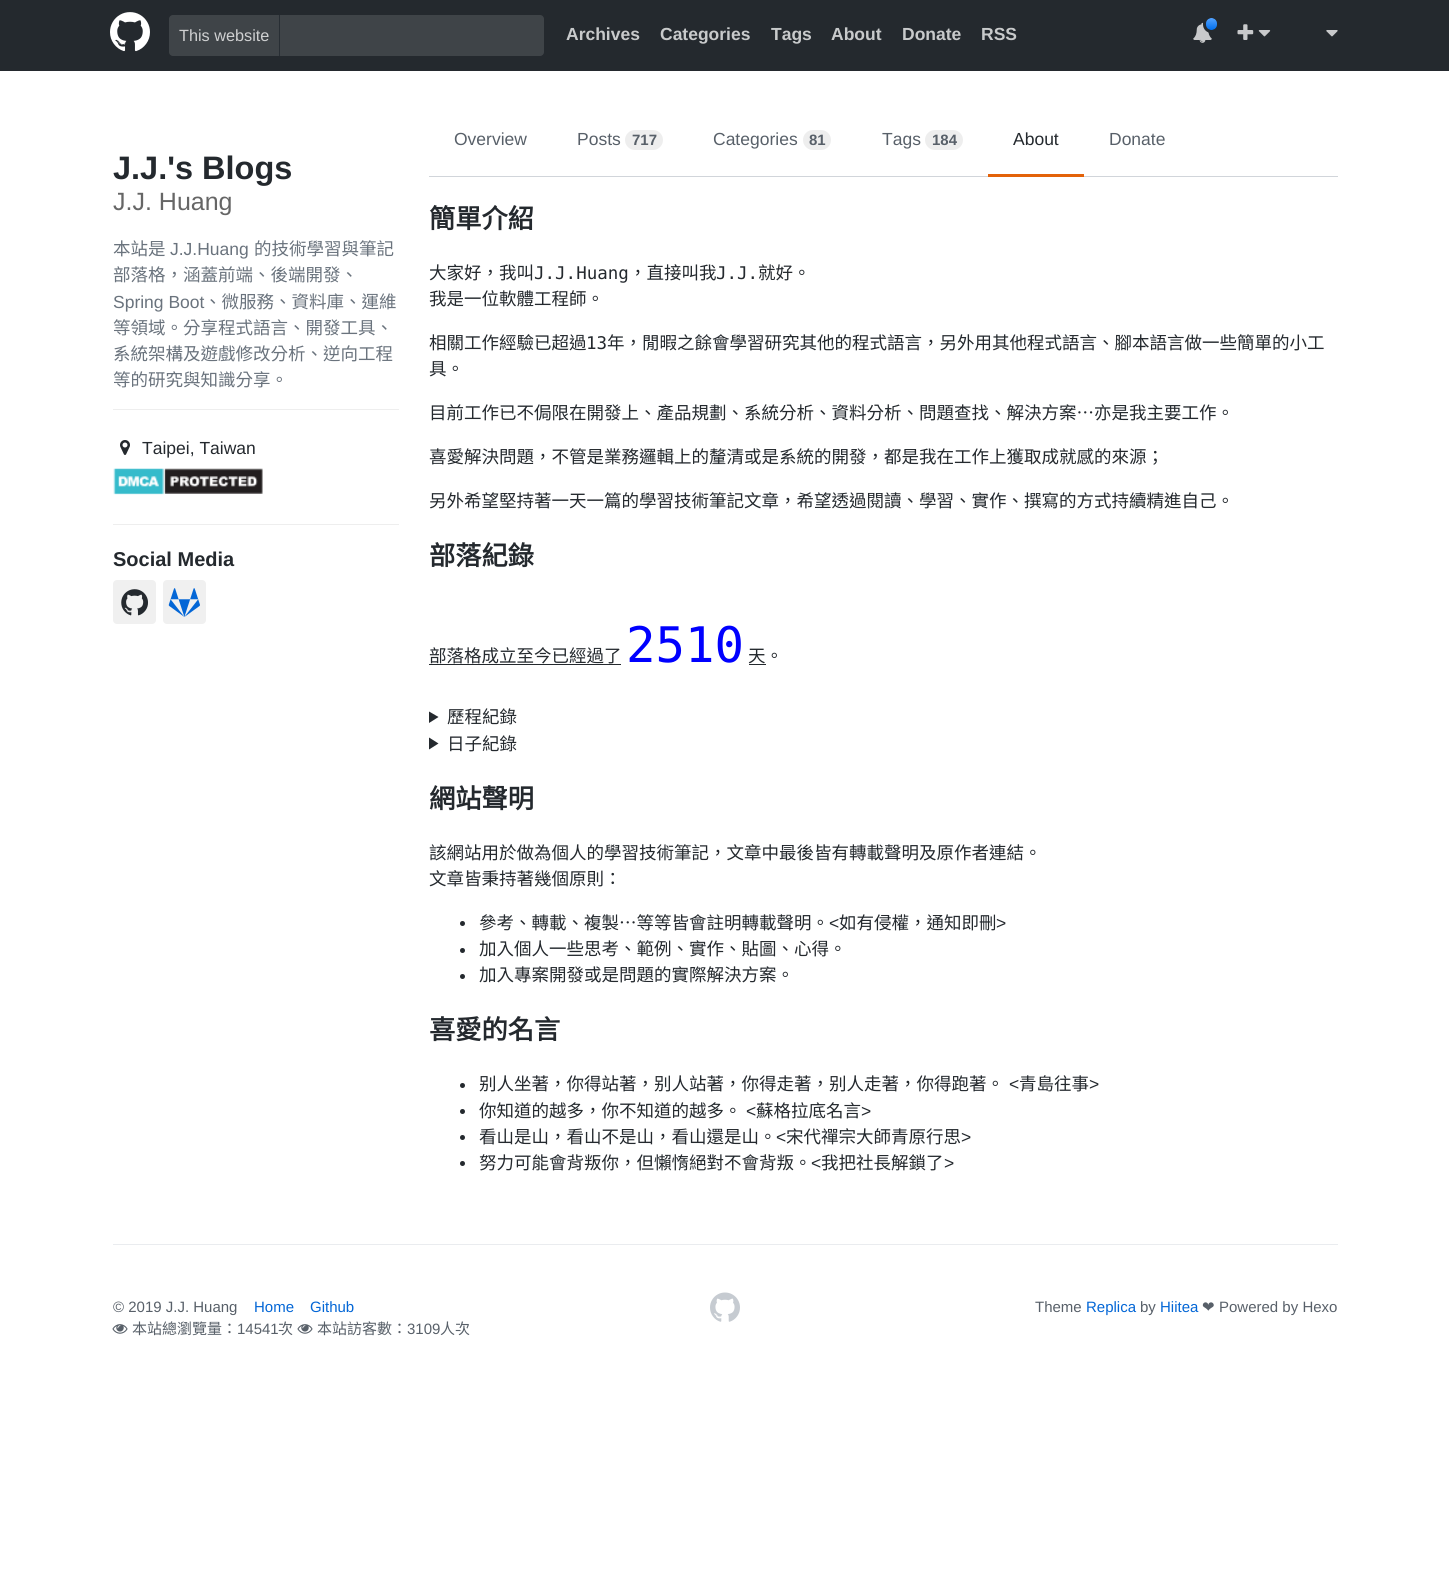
#include <cairo/cairo.h>
#include <math.h>
#include <stddef.h>

static cairo_t *cr;

static void use_color(int r, int g, int b) {
  cairo_set_source_rgb(cr, r / 255.0, g / 255.0, b / 255.0);
}

static void text(double x, double y, const char *s, const char *family, double size, int italic, int bold, int r, int g, int b) {
  cairo_select_font_face(cr, family, italic ? CAIRO_FONT_SLANT_ITALIC : CAIRO_FONT_SLANT_NORMAL,
    bold ? CAIRO_FONT_WEIGHT_BOLD : CAIRO_FONT_WEIGHT_NORMAL);
  cairo_set_font_size(cr, size);
  use_color(r, g, b);
  cairo_move_to(cr, x, y);
  cairo_show_text(cr, s);
}

static void box(double x, double y, double w, double h, int r, int g, int b) {
  use_color(r, g, b);
  cairo_rectangle(cr, x, y, w, h);
  cairo_fill(cr);
}

static void round_rect(double x, double y, double w, double h, double r) {
  cairo_new_sub_path(cr);
  cairo_arc(cr, x + w - r, y + h - r, r, 0, M_PI / 2);
  cairo_arc(cr, x + r, y + h - r, r, M_PI / 2, M_PI);
  cairo_arc(cr, x + r, y + r, r, M_PI, 1.5 * M_PI);
  cairo_arc(cr, x + w - r, y + r, r, 1.5 * M_PI, 2 * M_PI);
  cairo_close_path(cr);
}

static void picture(const char *path, double x, double y, double w, double h) {
  cairo_surface_t *image = cairo_image_surface_create_from_png(path);
  cairo_save(cr);
  cairo_set_source_surface(cr, image, x, y);
  cairo_rectangle(cr, x, y, w, h);
  cairo_fill(cr);
  cairo_restore(cr);
  cairo_surface_destroy(image);
}

static void draw(void) {
  cairo_pattern_t *gradient;
  use_color(255, 255, 255);
  cairo_paint(cr);
  box(0, 0, 1449, 71, 36, 41, 46);
  picture("img_01.png", 110, 12, 40, 40);
  use_color(63, 68, 72);
  round_rect(169, 15, 375, 41, 4);
  cairo_fill(cr);
  box(279, 15, 1, 41, 40, 46, 52);
  picture("img_02.png", 1193, 22, 19, 21);
  gradient = cairo_pattern_create_linear(1211, 18, 1211, 30);
  cairo_pattern_add_color_stop_rgba(gradient, 0, 0.329, 0.639, 1, 1);
  cairo_pattern_add_color_stop_rgba(gradient, 1, 0, 0.431, 0.929, 1);
  cairo_set_source(cr, gradient);
  cairo_pattern_destroy(gradient);
  round_rect(1205, 18, 13, 12, 6);
  cairo_fill(cr);
  round_rect(1204.5, 16.5, 14, 15, 7);
  use_color(36, 41, 46);
  cairo_set_line_width(cr, 3);
  cairo_stroke(cr);
  picture("img_03.png", 1237, 24, 17, 16);
  picture("img_04.png", 1258, 30, 13, 7);
  picture("img_05.png", 1326, 30, 12, 7);
  box(113, 409, 286, 1, 238, 238, 238);
  picture("img_06.png", 120, 440, 10, 15);
  picture("img_07.png", 113, 468, 150, 27);
  box(113, 524, 286, 1, 238, 238, 238);
  use_color(240, 240, 240);
  round_rect(113, 580, 43, 44, 4);
  cairo_fill(cr);
  picture("img_08.png", 121, 589, 27, 27);
  round_rect(163, 580, 43, 44, 4);
  cairo_fill(cr);
  picture("img_09.png", 168, 588, 32, 29);
  box(429, 176, 909, 1, 209, 213, 218);
  use_color(238, 238, 238);
  round_rect(625, 130, 38, 20, 10);
  cairo_fill(cr);
  round_rect(803, 130, 28, 20, 10);
  cairo_fill(cr);
  round_rect(925, 130, 38, 20, 10);
  cairo_fill(cr);
  box(988, 174, 96, 3, 227, 98, 9);
  box(429, 664, 192, 1, 36, 41, 46);
  box(749, 664, 17, 1, 36, 41, 46);
  cairo_new_path(cr);
  cairo_move_to(cr, 429, 711.5);
  cairo_line_to(cr, 438.5, 717);
  cairo_line_to(cr, 429, 723);
  cairo_close_path(cr);
  cairo_fill(cr);
  cairo_new_path(cr);
  cairo_move_to(cr, 429, 737.5);
  cairo_line_to(cr, 438.5, 743.5);
  cairo_line_to(cr, 429, 749.5);
  cairo_close_path(cr);
  cairo_fill(cr);
  cairo_arc(cr, 462.5, 923.5, 2.5, 0, 2 * M_PI);
  cairo_fill(cr);
  cairo_arc(cr, 462.5, 950.5, 2.5, 0, 2 * M_PI);
  cairo_fill(cr);
  cairo_arc(cr, 462.5, 976.5, 2.5, 0, 2 * M_PI);
  cairo_fill(cr);
  cairo_arc(cr, 462.5, 1085.5, 2.5, 0, 2 * M_PI);
  cairo_fill(cr);
  cairo_arc(cr, 462.5, 1111.5, 2.5, 0, 2 * M_PI);
  cairo_fill(cr);
  cairo_arc(cr, 462.5, 1137.5, 2.5, 0, 2 * M_PI);
  cairo_fill(cr);
  cairo_arc(cr, 462.5, 1163.5, 2.5, 0, 2 * M_PI);
  cairo_fill(cr);
  box(113, 1244, 1225, 1, 234, 236, 239);
  picture("img_10.png", 710, 1292, 30, 30);
  picture("img_11.png", 112, 1324, 16, 10);
  picture("img_11.png", 297, 1324, 16, 10);
  text(179, 41, "This website", "Liberation Sans", 16.25, 0, 0, 207, 208, 209);
  text(566, 40, "Archives", "Liberation Sans", 17.5, 0, 1, 200, 202, 203);
  text(660, 40, "Categories", "Liberation Sans", 17.5, 0, 1, 200, 202, 203);
  text(771, 40, "Tags", "Liberation Sans", 17.5, 0, 1, 200, 202, 203);
  text(831, 40, "About", "Liberation Sans", 17.5, 0, 1, 200, 202, 203);
  text(902, 40, "Donate", "Liberation Sans", 17.5, 0, 1, 200, 202, 203);
  text(981, 40, "RSS", "Liberation Sans", 17.5, 0, 1, 200, 202, 203);
  text(113, 179, "J.J.'s Blogs", "Liberation Sans", 32.5, 0, 1, 36, 41, 46);
  text(113, 210, "J.J. Huang", "Liberation Sans", 25, 0, 0, 102, 102, 102);
  text(113, 255, "本站是", "Noto Sans CJK TC", 17.5, 0, 0, 106, 115, 125);
  text(170, 255, "J.J.Huang", "Liberation Sans", 17.5, 0, 0, 106, 115, 125);
  text(254, 255, "的技術學習與筆記", "Noto Sans CJK TC", 17.5, 0, 0, 106, 115, 125);
  text(113, 281, "部落格，涵蓋前端、後端開發、", "Noto Sans CJK TC", 17.5, 0, 0, 106, 115, 125);
  text(113, 308, "Spring Boot", "Liberation Sans", 17.5, 0, 0, 106, 115, 125);
  text(204, 308, "、微服務、資料庫、運維", "Noto Sans CJK TC", 17.5, 0, 0, 106, 115, 125);
  text(113, 334, "等領域。分享程式語言、開發工具、", "Noto Sans CJK TC", 17.5, 0, 0, 106, 115, 125);
  text(113, 360, "系統架構及遊戲修改分析、逆向工程", "Noto Sans CJK TC", 17.5, 0, 0, 106, 115, 125);
  text(113, 386, "等的研究與知識分享。", "Noto Sans CJK TC", 17.5, 0, 0, 106, 115, 125);
  text(142, 454, "Taipei, Taiwan", "Liberation Sans", 17.5, 0, 0, 36, 41, 46);
  text(113, 566, "Social Media", "Liberation Sans", 20, 0, 1, 36, 41, 46);
  text(454, 145, "Overview", "Liberation Sans", 17.5, 0, 0, 88, 96, 105);
  text(577, 145, "Posts", "Liberation Sans", 17.5, 0, 0, 88, 96, 105);
  text(632, 145, "717", "Liberation Sans", 15, 0, 1, 88, 96, 105);
  text(713, 145, "Categories", "Liberation Sans", 17.5, 0, 0, 88, 96, 105);
  text(809, 145, "81", "Liberation Sans", 15, 0, 1, 88, 96, 105);
  text(882, 145, "Tags", "Liberation Sans", 17.5, 0, 0, 88, 96, 105);
  text(932, 145, "184", "Liberation Sans", 15, 0, 1, 88, 96, 105);
  text(1013, 145, "About", "Liberation Sans", 17.5, 0, 0, 36, 41, 46);
  text(1109, 145, "Donate", "Liberation Sans", 17.5, 0, 0, 88, 96, 105);
  text(429, 228, "簡單介紹", "Noto Sans CJK TC", 26.25, 0, 1, 36, 41, 46);
  text(429, 279, "大家好，我叫", "Noto Sans CJK TC", 17.5, 0, 0, 36, 41, 46);
  text(534, 279, "J.J.Huang", "DejaVu Sans Mono", 17.5, 0, 0, 36, 41, 46);
  text(629, 279, "，直接叫我", "Noto Sans CJK TC", 17.5, 0, 0, 36, 41, 46);
  text(716, 279, "J.J.", "DejaVu Sans Mono", 17.5, 0, 0, 36, 41, 46);
  text(758, 279, "就好。", "Noto Sans CJK TC", 17.5, 0, 0, 36, 41, 46);
  text(429, 305, "我是一位軟體工程師。", "Noto Sans CJK TC", 17.5, 0, 0, 36, 41, 46);
  text(429, 349, "相關工作經驗已超過", "Noto Sans CJK TC", 17.5, 0, 0, 36, 41, 46);
  text(586, 349, "13", "DejaVu Sans Mono", 17.5, 0, 0, 36, 41, 46);
  text(607, 349, "年，閒暇之餘會學習研究其他的程式語言，另外用其他程式語言、腳本語言做一些簡單的小工", "Noto Sans CJK TC", 17.5, 0, 0, 36, 41, 46);
  text(429, 375, "具。", "Noto Sans CJK TC", 17.5, 0, 0, 36, 41, 46);
  text(429, 419, "目前工作已不侷限在開發上、產品規劃、系統分析、資料分析、問題查找、解決方案⋯亦是我主要工作。", "Noto Sans CJK TC", 17.5, 0, 0, 36, 41, 46);
  text(429, 463, "喜愛解決問題，不管是業務邏輯上的釐清或是系統的開發，都是我在工作上獲取成就感的來源；", "Noto Sans CJK TC", 17.5, 0, 0, 36, 41, 46);
  text(429, 507, "另外希望堅持著一天一篇的學習技術筆記文章，希望透過閱讀、學習、實作、撰寫的方式持續精進自己。", "Noto Sans CJK TC", 17.5, 0, 0, 36, 41, 46);
  text(429, 565, "部落紀錄", "Noto Sans CJK TC", 26.25, 0, 1, 36, 41, 46);
  text(429, 662, "部落格成立至今已經過了", "Noto Sans CJK TC", 17.5, 0, 0, 36, 41, 46);
  text(626, 662, "2510", "DejaVu Sans Mono", 49, 0, 0, 0, 0, 255);
  text(748, 662, "天。", "Noto Sans CJK TC", 17.5, 0, 0, 36, 41, 46);
  text(447, 723, "歷程紀錄", "Noto Sans CJK TC", 17.5, 0, 0, 36, 41, 46);
  text(447, 750, "日子紀錄", "Noto Sans CJK TC", 17.5, 0, 0, 36, 41, 46);
  text(429, 808, "網站聲明", "Noto Sans CJK TC", 26.25, 0, 1, 36, 41, 46);
  text(429, 859, "該網站用於做為個人的學習技術筆記，文章中最後皆有轉載聲明及原作者連結。", "Noto Sans CJK TC", 17.5, 0, 0, 36, 41, 46);
  text(429, 885, "文章皆秉持著幾個原則：", "Noto Sans CJK TC", 17.5, 0, 0, 36, 41, 46);
  text(479, 929, "參考、轉載、複製⋯等等皆會註明轉載聲明。", "Noto Sans CJK TC", 17.5, 0, 0, 36, 41, 46);
  text(829, 929, "<", "Liberation Sans", 17.5, 0, 0, 36, 41, 46);
  text(839, 929, "如有侵權，通知即刪", "Noto Sans CJK TC", 17.5, 0, 0, 36, 41, 46);
  text(996, 929, ">", "Liberation Sans", 17.5, 0, 0, 36, 41, 46);
  text(479, 955, "加入個人一些思考、範例、實作、貼圖、心得。", "Noto Sans CJK TC", 17.5, 0, 0, 36, 41, 46);
  text(479, 981, "加入專案開發或是問題的實際解決方案。", "Noto Sans CJK TC", 17.5, 0, 0, 36, 41, 46);
  text(429, 1039, "喜愛的名言", "Noto Sans CJK TC", 26.25, 0, 1, 36, 41, 46);
  text(479, 1090, "别人坐著，你得站著，别人站著，你得走著，别人走著，你得跑著。", "Noto Sans CJK TC", 17.5, 0, 0, 36, 41, 46);
  text(1009, 1090, "<", "Liberation Sans", 17.5, 0, 0, 36, 41, 46);
  text(1019, 1090, "青島往事", "Noto Sans CJK TC", 17.5, 0, 0, 36, 41, 46);
  text(1089, 1090, ">", "Liberation Sans", 17.5, 0, 0, 36, 41, 46);
  text(479, 1117, "你知道的越多，你不知道的越多。", "Noto Sans CJK TC", 17.5, 0, 0, 36, 41, 46);
  text(746, 1117, "<", "Liberation Sans", 17.5, 0, 0, 36, 41, 46);
  text(756, 1117, "蘇格拉底名言", "Noto Sans CJK TC", 17.5, 0, 0, 36, 41, 46);
  text(861, 1117, ">", "Liberation Sans", 17.5, 0, 0, 36, 41, 46);
  text(479, 1143, "看山是山，看山不是山，看山還是山。", "Noto Sans CJK TC", 17.5, 0, 0, 36, 41, 46);
  text(776, 1143, "<", "Liberation Sans", 17.5, 0, 0, 36, 41, 46);
  text(786, 1143, "宋代禪宗大師青原行思", "Noto Sans CJK TC", 17.5, 0, 0, 36, 41, 46);
  text(961, 1143, ">", "Liberation Sans", 17.5, 0, 0, 36, 41, 46);
  text(479, 1169, "努力可能會背叛你，但懶惰絕對不會背叛。", "Noto Sans CJK TC", 17.5, 0, 0, 36, 41, 46);
  text(811, 1169, "<", "Liberation Sans", 17.5, 0, 0, 36, 41, 46);
  text(821, 1169, "我把社長解鎖了", "Noto Sans CJK TC", 17.5, 0, 0, 36, 41, 46);
  text(944, 1169, ">", "Liberation Sans", 17.5, 0, 0, 36, 41, 46);
  text(113, 1312, "© 2019 J.J. Huang", "Liberation Sans", 15, 0, 0, 88, 96, 105);
  text(254, 1312, "Home", "Liberation Sans", 15, 0, 0, 3, 102, 214);
  text(310, 1312, "Github", "Liberation Sans", 15, 0, 0, 3, 102, 214);
  text(1035, 1312, "Theme", "Liberation Sans", 15, 0, 0, 88, 96, 105);
  text(1086, 1312, "Replica", "Liberation Sans", 15, 0, 0, 3, 102, 214);
  text(1140, 1312, "by", "Liberation Sans", 15, 0, 0, 88, 96, 105);
  text(1160, 1312, "Hiitea", "Liberation Sans", 15, 0, 0, 3, 102, 214);
  text(1202, 1312, "❤", "DejaVu Sans", 15, 0, 0, 88, 96, 105);
  text(1219, 1312, "Powered by Hexo", "Liberation Sans", 15, 0, 0, 88, 96, 105);
  text(132, 1334, "本站總瀏覽量：", "Noto Sans CJK TC", 15, 0, 0, 88, 96, 105);
  text(237, 1334, "14541", "Liberation Sans", 15, 0, 0, 88, 96, 105);
  text(278, 1334, "次", "Noto Sans CJK TC", 15, 0, 0, 88, 96, 105);
  text(317, 1334, "本站訪客數：", "Noto Sans CJK TC", 15, 0, 0, 88, 96, 105);
  text(407, 1334, "3109", "Liberation Sans", 15, 0, 0, 88, 96, 105);
  text(440, 1334, "人次", "Noto Sans CJK TC", 15, 0, 0, 88, 96, 105);
}

int main(void) {
  cairo_surface_t *surface = cairo_image_surface_create(CAIRO_FORMAT_RGB24, 1449, 1577);
  cr = cairo_create(surface);
  cairo_font_options_t *options = cairo_font_options_create();
  cairo_font_options_set_hint_metrics(options, CAIRO_HINT_METRICS_OFF);
  cairo_font_options_set_hint_style(options, CAIRO_HINT_STYLE_NONE);
  cairo_set_font_options(cr, options);
  cairo_set_miter_limit(cr, 4);
  draw();
  cairo_surface_write_to_png(surface, "out.png");
  cairo_font_options_destroy(options);
  cairo_destroy(cr);
  cairo_surface_destroy(surface);
  return 0;
}
